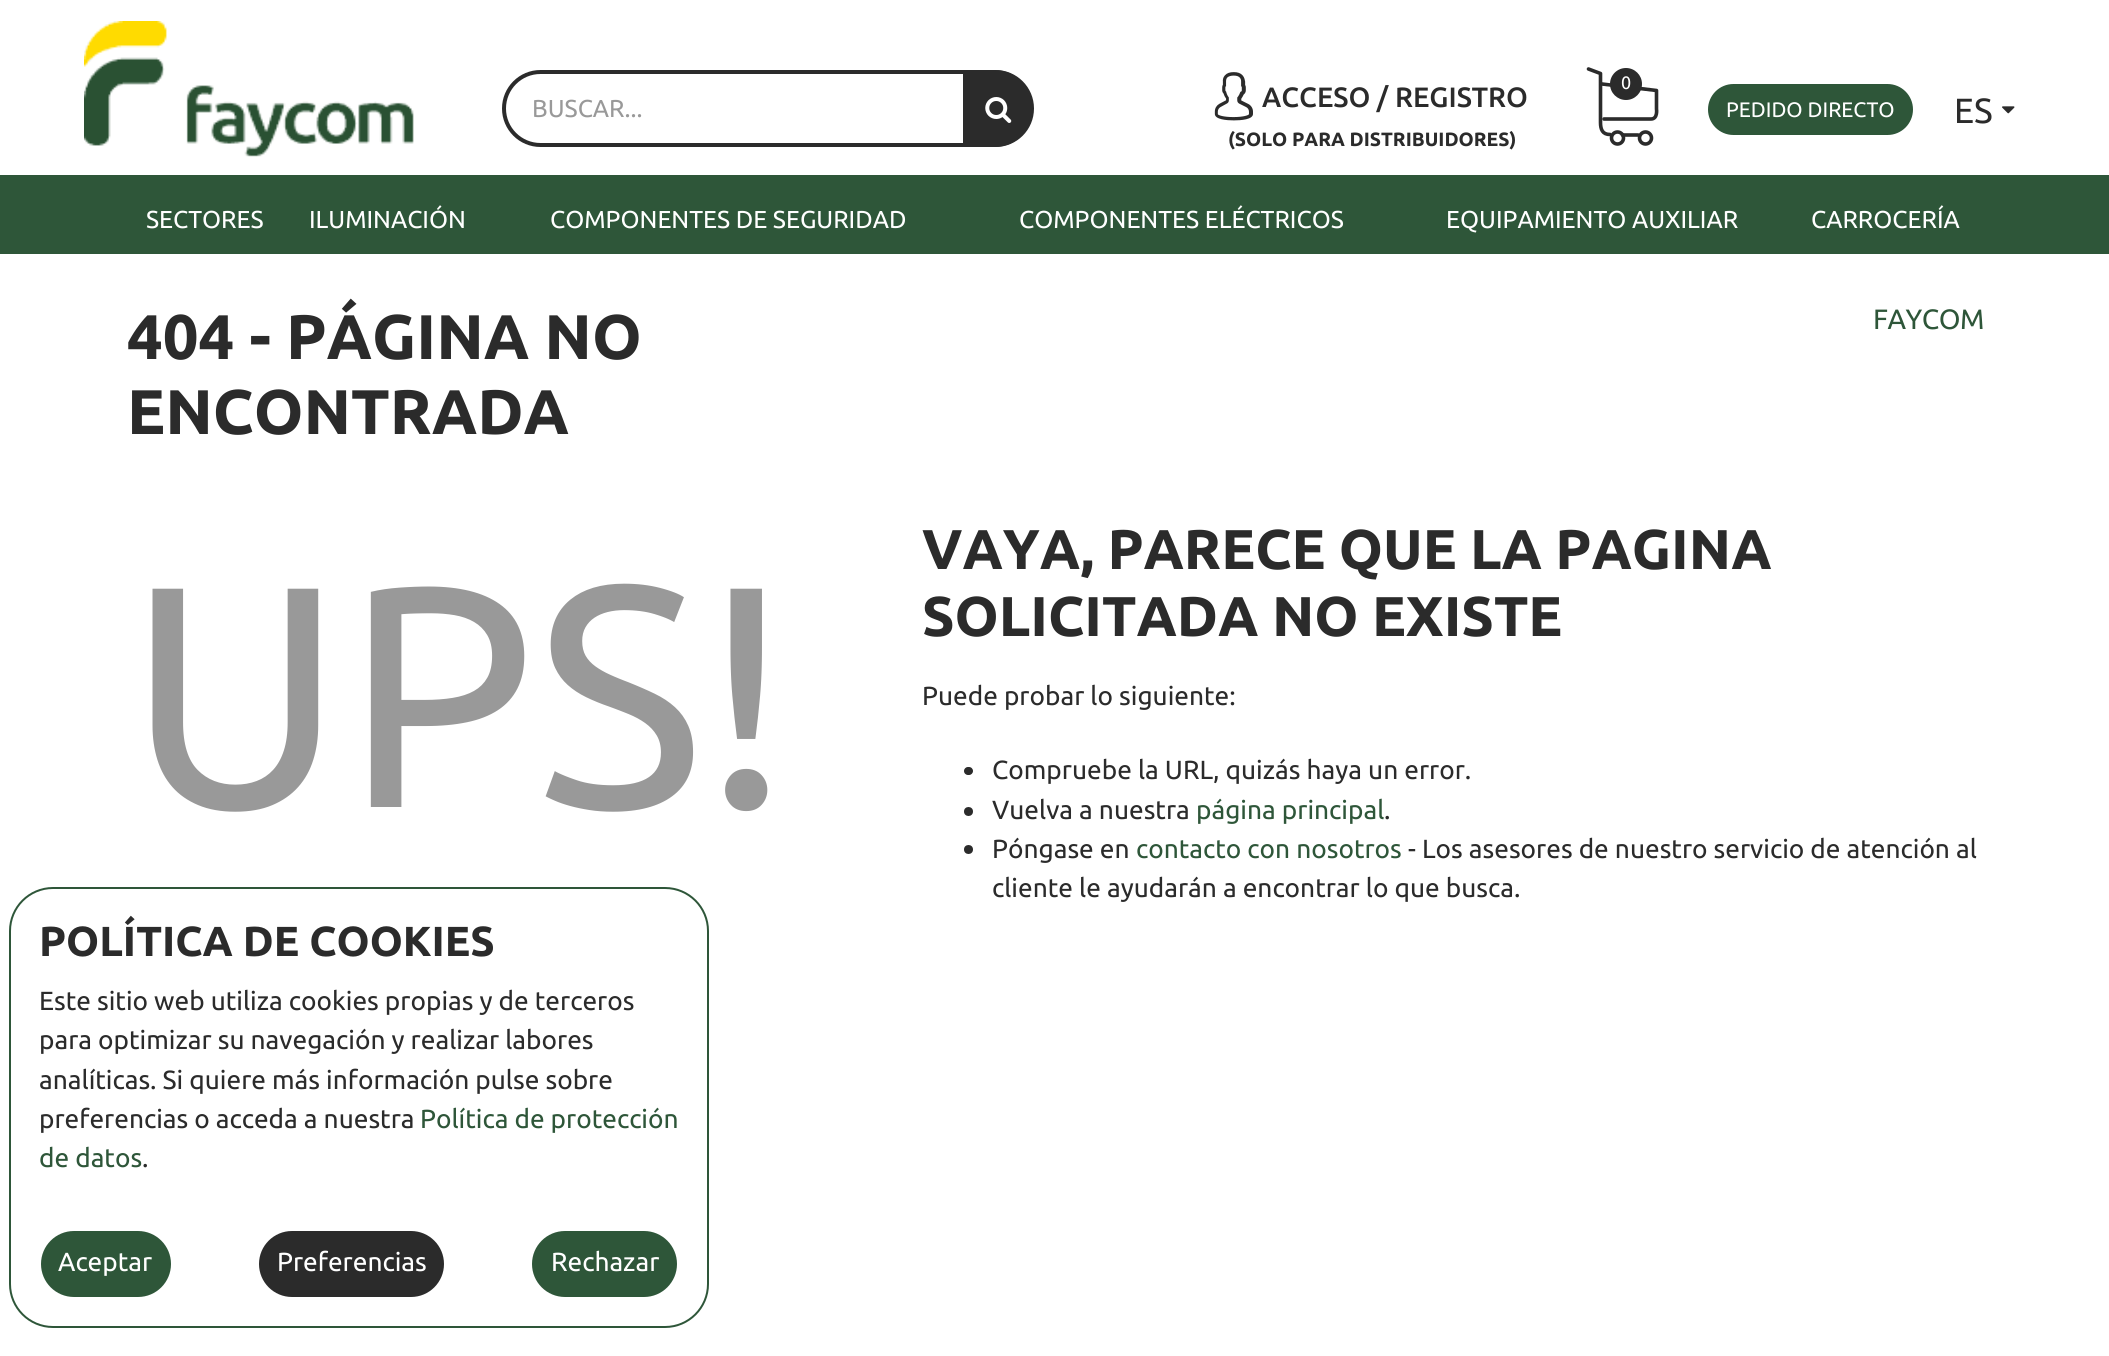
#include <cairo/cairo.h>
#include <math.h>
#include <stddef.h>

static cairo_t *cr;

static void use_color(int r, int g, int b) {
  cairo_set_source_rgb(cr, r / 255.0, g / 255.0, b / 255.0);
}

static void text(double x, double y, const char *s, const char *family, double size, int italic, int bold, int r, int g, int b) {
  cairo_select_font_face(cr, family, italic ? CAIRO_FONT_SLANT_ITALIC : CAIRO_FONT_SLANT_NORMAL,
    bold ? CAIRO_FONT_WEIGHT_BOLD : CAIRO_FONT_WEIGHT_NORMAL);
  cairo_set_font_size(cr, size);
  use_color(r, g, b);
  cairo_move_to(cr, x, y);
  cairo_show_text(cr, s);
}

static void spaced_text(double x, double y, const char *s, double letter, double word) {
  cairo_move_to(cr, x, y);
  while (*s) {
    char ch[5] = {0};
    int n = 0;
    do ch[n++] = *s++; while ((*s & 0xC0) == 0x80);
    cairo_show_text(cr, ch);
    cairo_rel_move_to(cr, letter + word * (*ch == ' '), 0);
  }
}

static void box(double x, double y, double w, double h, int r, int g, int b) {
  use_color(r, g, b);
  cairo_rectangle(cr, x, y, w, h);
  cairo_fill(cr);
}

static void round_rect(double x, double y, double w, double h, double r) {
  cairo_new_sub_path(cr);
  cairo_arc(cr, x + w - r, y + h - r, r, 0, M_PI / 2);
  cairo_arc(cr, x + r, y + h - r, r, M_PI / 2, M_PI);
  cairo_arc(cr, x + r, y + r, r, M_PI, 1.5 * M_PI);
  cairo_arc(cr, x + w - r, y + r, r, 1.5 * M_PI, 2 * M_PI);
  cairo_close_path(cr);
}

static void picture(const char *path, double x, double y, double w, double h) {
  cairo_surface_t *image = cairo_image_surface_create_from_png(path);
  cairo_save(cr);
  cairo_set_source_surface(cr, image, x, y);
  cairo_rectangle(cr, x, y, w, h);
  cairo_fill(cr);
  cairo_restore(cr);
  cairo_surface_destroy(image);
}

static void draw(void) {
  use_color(255, 255, 255);
  cairo_paint(cr);
  picture("img_01.png", 84, 21, 330, 136);
  cairo_new_path(cr);
  cairo_move_to(cr, 1622.5, 135);
  cairo_line_to(cr, 1638, 135);
  use_color(43, 43, 43);
  cairo_set_line_width(cr, 3.6);
  cairo_set_line_cap(cr, CAIRO_LINE_CAP_ROUND);
  cairo_set_line_join(cr, CAIRO_LINE_JOIN_ROUND);
  cairo_stroke(cr);
  cairo_new_path(cr);
  cairo_move_to(cr, 1588.5, 69);
  cairo_line_to(cr, 1600.5, 73.5);
  cairo_line_to(cr, 1600.5, 122.5);
  cairo_curve_to(cr, 1600.5, 129.5, 1602.5, 134.5, 1610, 134.5);
  cairo_stroke(cr);
  cairo_new_path(cr);
  cairo_move_to(cr, 1602, 84);
  cairo_line_to(cr, 1656.5, 90.5);
  cairo_line_to(cr, 1656.5, 109);
  cairo_curve_to(cr, 1656.5, 109, 1658, 119, 1651, 119);
  cairo_line_to(cr, 1604, 119);
  cairo_stroke(cr);
  cairo_arc(cr, 1617.5, 138, 6, 0, 2 * M_PI);
  cairo_set_line_cap(cr, CAIRO_LINE_CAP_BUTT);
  cairo_set_line_join(cr, CAIRO_LINE_JOIN_MITER);
  cairo_stroke(cr);
  cairo_arc(cr, 1645.5, 138, 6, 0, 2 * M_PI);
  cairo_stroke(cr);
  cairo_arc(cr, 1626, 84, 16, 0, 2 * M_PI);
  cairo_fill(cr);
  round_rect(504, 72, 528, 73, 36.5);
  cairo_set_line_width(cr, 4);
  cairo_stroke(cr);
  cairo_new_path(cr);
  cairo_move_to(cr, 965, 72);
  cairo_line_to(cr, 994.5, 72);
  cairo_curve_to(cr, 1014.5, 72, 1031, 88.5, 1031, 108.5);
  cairo_curve_to(cr, 1031, 128.5, 1014.5, 145, 994.5, 145);
  cairo_line_to(cr, 965, 145);
  cairo_close_path(cr);
  cairo_fill_preserve(cr);
  cairo_stroke(cr);
  picture("img_02.png", 985, 97, 27, 26);
  picture("img_03.png", 1214, 72, 39, 49);
  use_color(46, 86, 57);
  round_rect(1707, 83, 207, 53, 26.5);
  cairo_fill_preserve(cr);
  use_color(255, 255, 255);
  cairo_set_line_width(cr, 2);
  cairo_stroke(cr);
  picture("img_04.png", 2002, 106, 13, 8);
  box(0, 175, 2109, 79, 46, 86, 57);
  use_color(43, 43, 43);
  round_rect(964, 767, 9, 8, 4);
  cairo_fill(cr);
  cairo_arc(cr, 968.5, 811.5, 4.5, 0, 2 * M_PI);
  cairo_fill(cr);
  cairo_arc(cr, 968.5, 849.5, 4.5, 0, 2 * M_PI);
  cairo_fill(cr);
  round_rect(10, 888, 698, 439, 43);
  use_color(46, 86, 57);
  cairo_stroke(cr);
  round_rect(40, 1230, 132, 68, 34);
  cairo_fill_preserve(cr);
  use_color(255, 255, 255);
  cairo_stroke(cr);
  use_color(43, 43, 43);
  round_rect(258, 1230, 187, 68, 34);
  cairo_fill_preserve(cr);
  use_color(255, 255, 255);
  cairo_stroke(cr);
  use_color(46, 86, 57);
  round_rect(531, 1230, 147, 68, 34);
  cairo_fill_preserve(cr);
  use_color(255, 255, 255);
  cairo_stroke(cr);
  text(1621, 89, "0", "Ubuntu", 18, 0, 0, 255, 255, 255);
  text(532, 117, "BUSCAR...", "Ubuntu", 24.5, 0, 0, 153, 153, 153);
  text(1262, 107, "ACCESO / REGISTRO", "Ubuntu Medium", 28, 0, 0, 43, 43, 43);
  text(1726, 117, "PEDIDO DIRECTO", "Ubuntu", 21, 0, 0, 255, 255, 255);
  text(1954, 123, "ES", "Ubuntu", 35, 0, 0, 43, 43, 43);
  text(1228, 146, "(SOLO PARA DISTRIBUIDORES)", "Ubuntu", 19.25, 0, 1, 43, 43, 43);
  text(146, 228, "SECTORES", "Ubuntu", 24.5, 0, 0, 255, 255, 255);
  text(309, 228, "ILUMINACIÓN", "Ubuntu", 24.5, 0, 0, 255, 255, 255);
  text(550, 228, "COMPONENTES DE SEGURIDAD", "Ubuntu", 24.5, 0, 0, 255, 255, 255);
  text(1019, 228, "COMPONENTES ELÉCTRICOS", "Ubuntu", 24.5, 0, 0, 255, 255, 255);
  text(1446, 228, "EQUIPAMIENTO AUXILIAR", "Ubuntu", 24.5, 0, 0, 255, 255, 255);
  text(1811, 228, "CARROCERÍA", "Ubuntu", 24.5, 0, 0, 255, 255, 255);
  text(127, 359, "404 - PÁGINA NO", "Ubuntu", 63, 0, 1, 43, 43, 43);
  text(127, 434, "ENCONTRADA", "Ubuntu", 63, 0, 1, 43, 43, 43);
  cairo_select_font_face(cr, "Ubuntu", CAIRO_FONT_SLANT_NORMAL, CAIRO_FONT_WEIGHT_NORMAL);
  cairo_set_font_size(cr, 28);
  use_color(46, 86, 57);
  spaced_text(1873, 329, "FAYCOM", -0.5, 0);
  text(127, 807, "UPS!", "Ubuntu", 315, 0, 0, 153, 153, 153);
  text(922, 569, "VAYA, PARECE QUE LA PAGINA", "Ubuntu", 56, 0, 1, 43, 43, 43);
  text(922, 636, "SOLICITADA NO EXISTE", "Ubuntu", 56, 0, 1, 43, 43, 43);
  text(922, 705, "Puede probar lo siguiente:", "Ubuntu", 26.25, 0, 0, 43, 43, 43);
  text(992, 779, "Compruebe la URL, quizás haya un error.", "Ubuntu", 26.25, 0, 0, 43, 43, 43);
  text(992, 819, "Vuelva a nuestra", "Ubuntu", 26.25, 0, 0, 43, 43, 43);
  text(1196, 819, "página principal", "Ubuntu", 26.25, 0, 0, 46, 86, 57);
  text(1384, 819, ".", "Ubuntu", 26.25, 0, 0, 43, 43, 43);
  text(992, 858, "Póngase en", "Ubuntu", 26.25, 0, 0, 43, 43, 43);
  text(1136, 858, "contacto con nosotros", "Ubuntu", 26.25, 0, 0, 46, 86, 57);
  text(1408, 858, "- Los asesores de nuestro servicio de atención al", "Ubuntu", 26.25, 0, 0, 43, 43, 43);
  text(992, 897, "cliente le ayudarán a encontrar lo que busca.", "Ubuntu", 26.25, 0, 0, 43, 43, 43);
  text(39, 956, "POLÍTICA DE COOKIES", "Ubuntu", 42, 0, 1, 43, 43, 43);
  text(39, 1010, "Este sitio web utiliza cookies propias y de terceros", "Ubuntu", 26.25, 0, 0, 43, 43, 43);
  text(39, 1049, "para optimizar su navegación y realizar labores", "Ubuntu", 26.25, 0, 0, 43, 43, 43);
  text(39, 1089, "analíticas. Si quiere más información pulse sobre", "Ubuntu", 26.25, 0, 0, 43, 43, 43);
  text(39, 1128, "preferencias o acceda a nuestra", "Ubuntu", 26.25, 0, 0, 43, 43, 43);
  text(420, 1128, "Política de protección", "Ubuntu", 26.25, 0, 0, 46, 86, 57);
  text(39, 1167, "de datos", "Ubuntu", 26.25, 0, 0, 46, 86, 57);
  text(142, 1167, ".", "Ubuntu", 26.25, 0, 0, 43, 43, 43);
  text(58, 1271, "Aceptar", "Ubuntu", 26.25, 0, 0, 255, 255, 255);
  text(277, 1271, "Preferencias", "Ubuntu", 26.25, 0, 0, 255, 255, 255);
  text(551, 1271, "Rechazar", "Ubuntu", 26.25, 0, 0, 255, 255, 255);
}

int main(void) {
  cairo_surface_t *surface = cairo_image_surface_create(CAIRO_FORMAT_RGB24, 2109, 1356);
  cr = cairo_create(surface);
  cairo_font_options_t *options = cairo_font_options_create();
  cairo_font_options_set_hint_metrics(options, CAIRO_HINT_METRICS_OFF);
  cairo_font_options_set_hint_style(options, CAIRO_HINT_STYLE_NONE);
  cairo_set_font_options(cr, options);
  cairo_set_miter_limit(cr, 4);
  draw();
  cairo_surface_write_to_png(surface, "out.png");
  cairo_font_options_destroy(options);
  cairo_destroy(cr);
  cairo_surface_destroy(surface);
  return 0;
}
